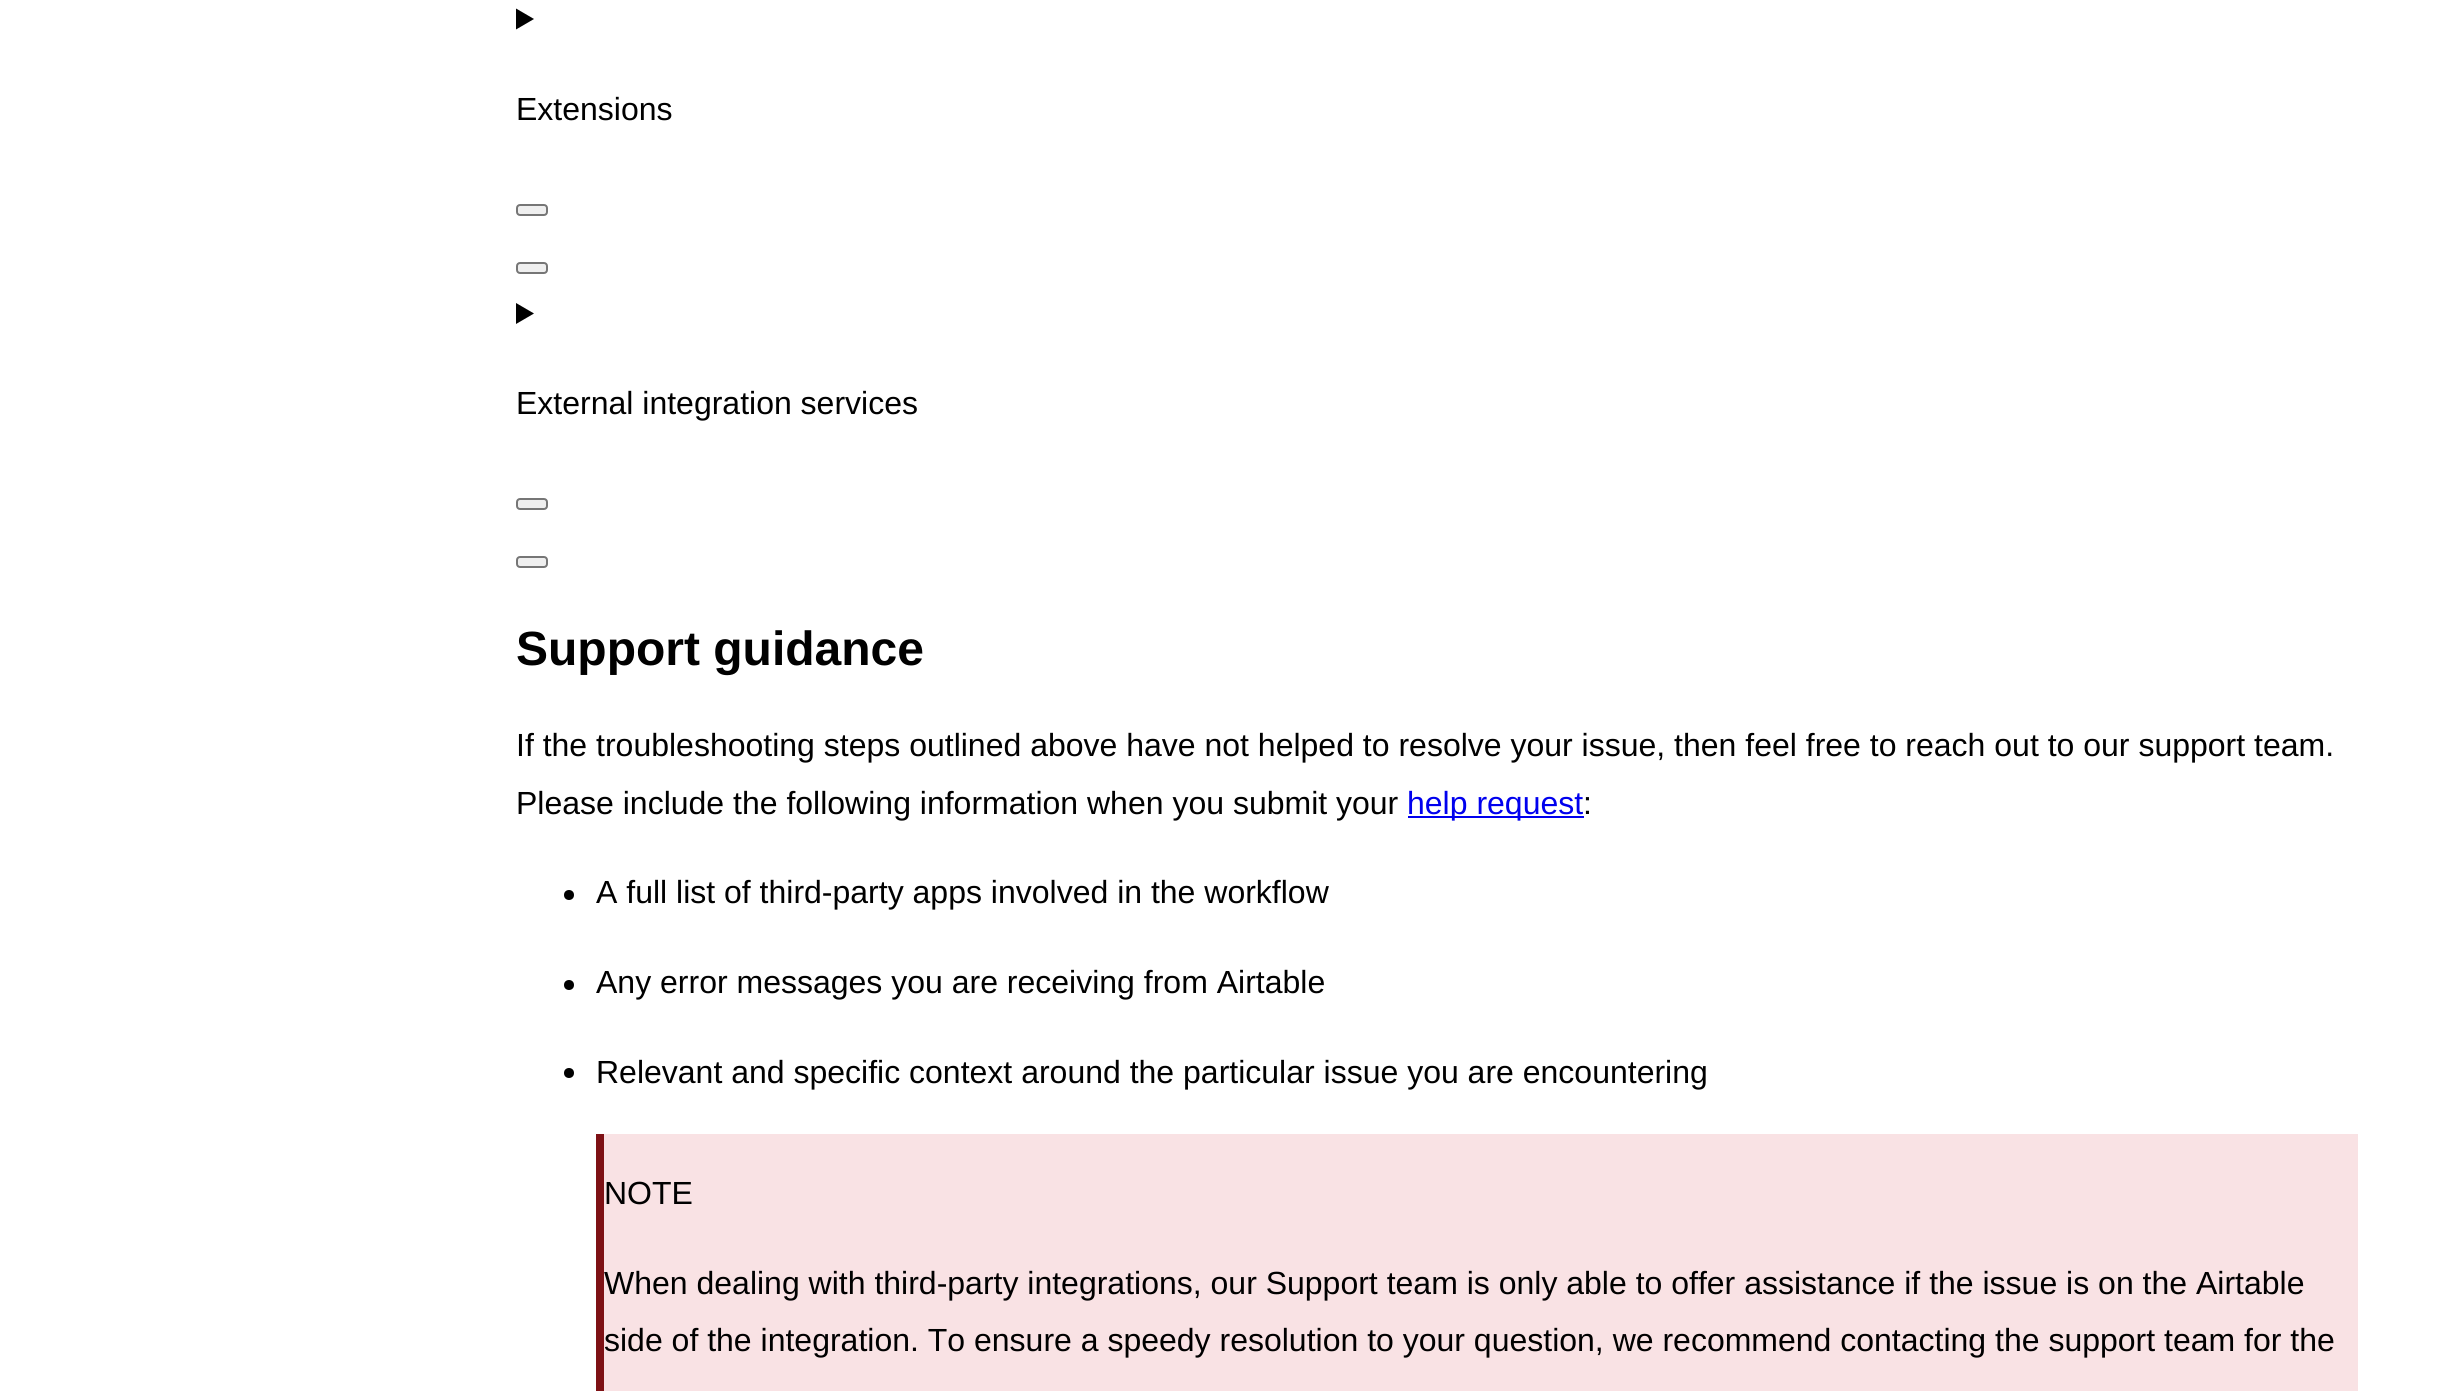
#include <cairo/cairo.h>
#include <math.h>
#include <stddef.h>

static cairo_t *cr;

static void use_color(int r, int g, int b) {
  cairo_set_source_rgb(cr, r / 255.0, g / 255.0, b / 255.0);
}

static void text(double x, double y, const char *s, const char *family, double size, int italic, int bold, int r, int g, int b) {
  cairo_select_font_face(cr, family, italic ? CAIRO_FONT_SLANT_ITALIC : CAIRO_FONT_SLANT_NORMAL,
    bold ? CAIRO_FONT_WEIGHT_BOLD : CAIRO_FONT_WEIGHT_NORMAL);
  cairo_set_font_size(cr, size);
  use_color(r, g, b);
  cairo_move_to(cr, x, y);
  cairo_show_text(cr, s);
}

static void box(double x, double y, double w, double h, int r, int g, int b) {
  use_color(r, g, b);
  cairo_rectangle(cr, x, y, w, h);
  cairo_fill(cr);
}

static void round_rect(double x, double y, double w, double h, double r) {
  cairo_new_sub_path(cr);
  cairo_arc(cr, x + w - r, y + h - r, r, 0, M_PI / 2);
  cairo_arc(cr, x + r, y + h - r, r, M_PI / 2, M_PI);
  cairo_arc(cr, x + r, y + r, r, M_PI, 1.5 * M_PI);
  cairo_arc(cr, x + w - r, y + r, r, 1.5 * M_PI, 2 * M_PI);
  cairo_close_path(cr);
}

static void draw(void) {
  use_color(255, 255, 255);
  cairo_paint(cr);
  use_color(0, 0, 0);
  cairo_new_path(cr);
  cairo_move_to(cr, 516, 8.5);
  cairo_line_to(cr, 534, 19);
  cairo_line_to(cr, 516, 29.5);
  cairo_close_path(cr);
  cairo_fill(cr);
  use_color(239, 239, 239);
  round_rect(517, 205, 30, 10, 3);
  cairo_fill_preserve(cr);
  use_color(118, 118, 118);
  cairo_stroke(cr);
  use_color(239, 239, 239);
  round_rect(517, 263, 30, 10, 3);
  cairo_fill_preserve(cr);
  use_color(118, 118, 118);
  cairo_stroke(cr);
  use_color(0, 0, 0);
  cairo_new_path(cr);
  cairo_move_to(cr, 516, 303);
  cairo_line_to(cr, 534, 313.5);
  cairo_line_to(cr, 516, 324);
  cairo_close_path(cr);
  cairo_fill(cr);
  use_color(239, 239, 239);
  round_rect(517, 499, 30, 10, 3);
  cairo_fill_preserve(cr);
  use_color(118, 118, 118);
  cairo_stroke(cr);
  use_color(239, 239, 239);
  round_rect(517, 557, 30, 10, 3);
  cairo_fill_preserve(cr);
  use_color(118, 118, 118);
  cairo_stroke(cr);
  box(1408, 816, 176, 2, 0, 0, 238);
  use_color(0, 0, 0);
  cairo_arc(cr, 569, 895, 5, 0, 2 * M_PI);
  cairo_fill(cr);
  cairo_arc(cr, 569, 985, 5, 0, 2 * M_PI);
  cairo_fill(cr);
  cairo_arc(cr, 569, 1073, 5, 0, 2 * M_PI);
  cairo_fill(cr);
  box(604, 1134, 1754, 257, 249, 226, 228);
  box(596, 1134, 8, 257, 126, 17, 21);
  text(516, 120, "Extensions", "Liberation Sans", 32, 0, 0, 0, 0, 0);
  text(516, 414, "External integration services", "Liberation Sans", 32, 0, 0, 0, 0, 0);
  text(516, 665, "Support guidance", "Liberation Sans", 48, 0, 1, 0, 0, 0);
  text(516, 756, "If the troubleshooting steps outlined above have not helped to resolve your issue, then feel free to reach out to our support team.", "Liberation Sans", 32, 0, 0, 0, 0, 0);
  text(516, 814, "Please include the following information when you submit your", "Liberation Sans", 32, 0, 0, 0, 0, 0);
  text(1407, 814, "help request", "Liberation Sans", 32, 0, 0, 0, 0, 238);
  text(1583, 814, ":", "Liberation Sans", 32, 0, 0, 0, 0, 0);
  text(596, 903, "A full list of third-party apps involved in the workflow", "Liberation Sans", 32, 0, 0, 0, 0, 0);
  text(596, 993, "Any error messages you are receiving from Airtable", "Liberation Sans", 32, 0, 0, 0, 0, 0);
  text(596, 1083, "Relevant and specific context around the particular issue you are encountering", "Liberation Sans", 32, 0, 0, 0, 0, 0);
  text(604, 1204, "NOTE", "Liberation Sans", 32, 0, 0, 0, 0, 0);
  text(604, 1294, "When dealing with third-party integrations, our Support team is only able to offer assistance if the issue is on the Airtable", "Liberation Sans", 32, 0, 0, 0, 0, 0);
  text(604, 1351, "side of the integration. To ensure a speedy resolution to your question, we recommend contacting the support team for the", "Liberation Sans", 32, 0, 0, 0, 0, 0);
}

int main(void) {
  cairo_surface_t *surface = cairo_image_surface_create(CAIRO_FORMAT_RGB24, 2454, 1391);
  cr = cairo_create(surface);
  cairo_font_options_t *options = cairo_font_options_create();
  cairo_font_options_set_hint_metrics(options, CAIRO_HINT_METRICS_OFF);
  cairo_font_options_set_hint_style(options, CAIRO_HINT_STYLE_NONE);
  cairo_set_font_options(cr, options);
  cairo_set_miter_limit(cr, 4);
  draw();
  cairo_surface_write_to_png(surface, "out.png");
  cairo_font_options_destroy(options);
  cairo_destroy(cr);
  cairo_surface_destroy(surface);
  return 0;
}
